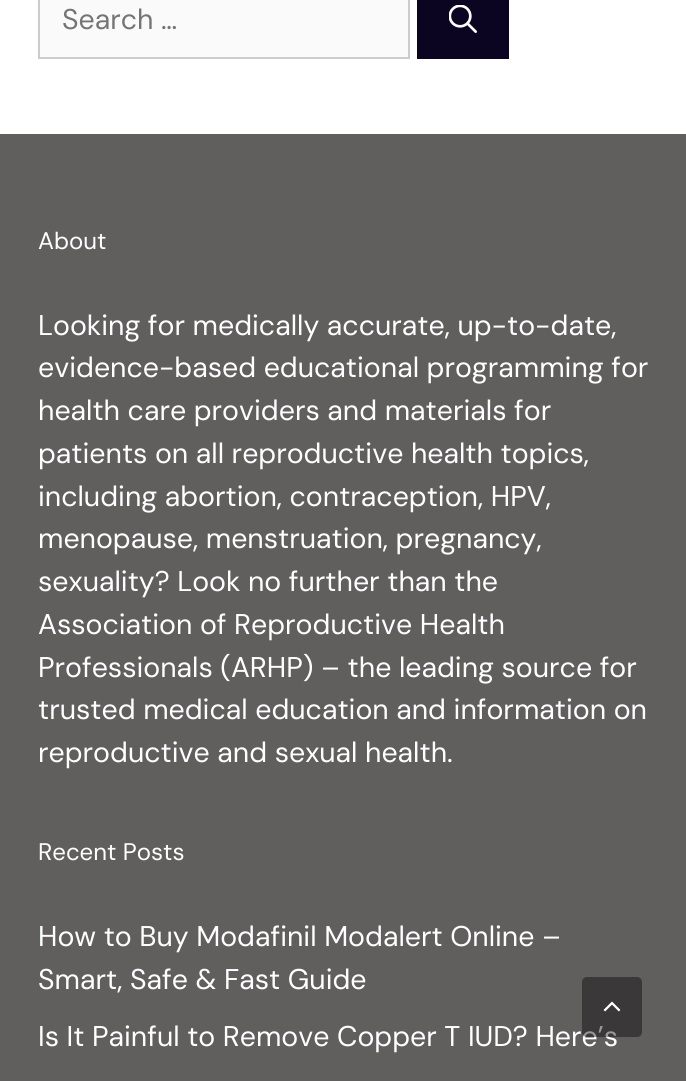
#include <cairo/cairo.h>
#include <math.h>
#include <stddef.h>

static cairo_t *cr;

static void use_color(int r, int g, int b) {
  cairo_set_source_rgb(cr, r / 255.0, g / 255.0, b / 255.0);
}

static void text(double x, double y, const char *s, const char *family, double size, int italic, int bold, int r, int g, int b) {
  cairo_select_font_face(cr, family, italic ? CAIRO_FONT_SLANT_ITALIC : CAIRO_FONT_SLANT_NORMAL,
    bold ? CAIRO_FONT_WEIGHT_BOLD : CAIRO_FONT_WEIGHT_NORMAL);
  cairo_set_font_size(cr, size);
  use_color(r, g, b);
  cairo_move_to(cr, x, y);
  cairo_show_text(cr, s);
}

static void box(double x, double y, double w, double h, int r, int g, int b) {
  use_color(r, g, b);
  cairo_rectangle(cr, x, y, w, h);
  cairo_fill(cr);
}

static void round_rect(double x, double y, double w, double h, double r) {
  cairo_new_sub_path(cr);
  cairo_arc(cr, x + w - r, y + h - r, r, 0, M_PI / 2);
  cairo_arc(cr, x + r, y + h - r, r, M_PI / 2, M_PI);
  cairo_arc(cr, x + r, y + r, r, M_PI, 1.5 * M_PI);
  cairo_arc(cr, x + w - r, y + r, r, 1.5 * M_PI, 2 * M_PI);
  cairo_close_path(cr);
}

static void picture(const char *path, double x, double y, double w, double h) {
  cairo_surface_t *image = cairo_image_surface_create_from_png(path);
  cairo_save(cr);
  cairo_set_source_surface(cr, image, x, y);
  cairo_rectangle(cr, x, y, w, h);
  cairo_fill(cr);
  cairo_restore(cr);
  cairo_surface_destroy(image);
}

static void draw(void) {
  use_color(255, 255, 255);
  cairo_paint(cr);
  use_color(250, 250, 250);
  cairo_rectangle(cr, 39, -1, 370, 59);
  cairo_fill_preserve(cr);
  use_color(204, 204, 204);
  cairo_stroke(cr);
  box(417, 0, 92, 59, 11, 5, 33);
  picture("img_01.png", 449, 5, 28, 28);
  box(0, 134, 686, 947, 97, 94, 94);
  text(62, 29, "Search …", "DM Sans", 28.5, 0, 0, 117, 117, 117);
  text(38, 249, "About", "DM Sans", 24, 0, 0, 255, 255, 255);
  text(38, 335, "Looking for medically accurate, up-to-date,", "DM Sans", 28.5, 0, 0, 255, 255, 255);
  text(38, 377, "evidence-based educational programming for", "DM Sans", 28.5, 0, 0, 255, 255, 255);
  text(38, 420, "health care providers and materials for", "DM Sans", 28.5, 0, 0, 255, 255, 255);
  text(38, 463, "patients on all reproductive health topics,", "DM Sans", 28.5, 0, 0, 255, 255, 255);
  text(38, 506, "including abortion, contraception, HPV,", "DM Sans", 28.5, 0, 0, 255, 255, 255);
  text(38, 548, "menopause, menstruation, pregnancy,", "DM Sans", 28.5, 0, 0, 255, 255, 255);
  text(38, 591, "sexuality? Look no further than the", "DM Sans", 28.5, 0, 0, 255, 255, 255);
  text(38, 634, "Association of Reproductive Health", "DM Sans", 28.5, 0, 0, 255, 255, 255);
  text(38, 677, "Professionals (ARHP) – the leading source for", "DM Sans", 28.5, 0, 0, 255, 255, 255);
  text(38, 719, "trusted medical education and information on", "DM Sans", 28.5, 0, 0, 255, 255, 255);
  text(38, 762, "reproductive and sexual health.", "DM Sans", 28.5, 0, 0, 255, 255, 255);
  text(38, 860, "Recent Posts", "DM Sans", 24, 0, 0, 255, 255, 255);
  text(38, 946, "How to Buy Modafinil Modalert Online –", "DM Sans", 28.5, 0, 0, 255, 255, 255);
  text(38, 989, "Smart, Safe & Fast Guide", "DM Sans", 28.5, 0, 0, 255, 255, 255);
  text(38, 1046, "Is It Painful to Remove Copper T IUD? Here’s", "DM Sans", 28.5, 0, 0, 255, 255, 255);
  cairo_set_source_rgba(cr, 0, 0, 0, 0.4);
  round_rect(582, 977, 60, 60, 5);
  cairo_fill(cr);
  picture("img_02.png", 603, 1001, 18, 11);
}

int main(void) {
  cairo_surface_t *surface = cairo_image_surface_create(CAIRO_FORMAT_RGB24, 686, 1081);
  cr = cairo_create(surface);
  cairo_font_options_t *options = cairo_font_options_create();
  cairo_font_options_set_hint_metrics(options, CAIRO_HINT_METRICS_OFF);
  cairo_font_options_set_hint_style(options, CAIRO_HINT_STYLE_NONE);
  cairo_set_font_options(cr, options);
  cairo_set_miter_limit(cr, 4);
  draw();
  cairo_surface_write_to_png(surface, "out.png");
  cairo_font_options_destroy(options);
  cairo_destroy(cr);
  cairo_surface_destroy(surface);
  return 0;
}
